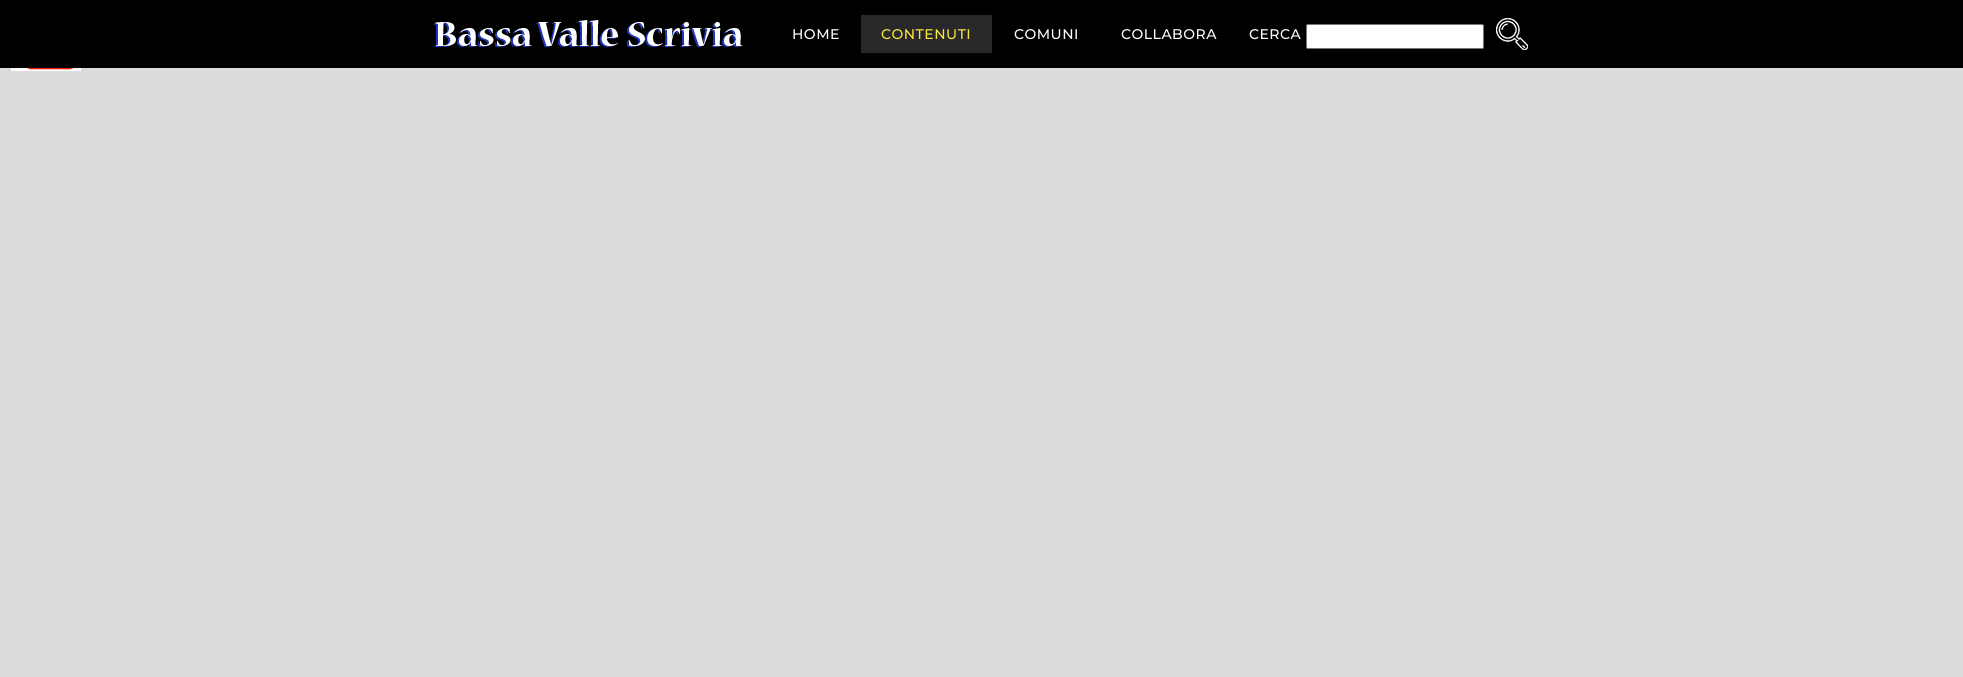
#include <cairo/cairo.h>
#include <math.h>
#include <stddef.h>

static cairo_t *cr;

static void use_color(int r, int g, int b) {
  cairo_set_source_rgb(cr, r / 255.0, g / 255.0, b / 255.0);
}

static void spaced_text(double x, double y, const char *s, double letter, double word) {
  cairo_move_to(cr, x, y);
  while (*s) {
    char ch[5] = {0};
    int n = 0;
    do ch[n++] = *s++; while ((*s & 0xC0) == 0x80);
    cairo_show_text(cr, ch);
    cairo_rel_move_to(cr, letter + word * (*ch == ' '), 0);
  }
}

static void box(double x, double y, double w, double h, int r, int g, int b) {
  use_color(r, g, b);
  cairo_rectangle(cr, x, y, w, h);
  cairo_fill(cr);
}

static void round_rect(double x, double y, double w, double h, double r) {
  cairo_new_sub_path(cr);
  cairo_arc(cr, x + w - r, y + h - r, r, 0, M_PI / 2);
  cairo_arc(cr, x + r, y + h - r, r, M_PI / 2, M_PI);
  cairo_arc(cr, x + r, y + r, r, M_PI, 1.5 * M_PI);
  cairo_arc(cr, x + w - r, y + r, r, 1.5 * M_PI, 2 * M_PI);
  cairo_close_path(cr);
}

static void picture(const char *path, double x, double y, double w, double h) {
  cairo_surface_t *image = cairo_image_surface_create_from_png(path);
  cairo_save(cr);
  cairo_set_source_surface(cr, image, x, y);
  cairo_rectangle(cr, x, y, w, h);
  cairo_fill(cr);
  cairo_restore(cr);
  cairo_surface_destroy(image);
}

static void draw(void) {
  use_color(220, 220, 220);
  cairo_paint(cr);
  box(0, 0, 1963, 68, 0, 0, 0);
  picture("img_01.png", 433, 20, 310, 27);
  box(861, 15, 131, 38, 40, 40, 40);
  use_color(255, 255, 255);
  round_rect(1306.5, 24.5, 177, 24, 1.5);
  cairo_fill_preserve(cr);
  use_color(118, 118, 118);
  cairo_set_line_width(cr, 1);
  cairo_stroke(cr);
  picture("img_02.png", 1496, 18, 32, 32);
  picture("img_03.png", 11, 68, 70, 3);
  cairo_select_font_face(cr, "Montserrat Medium", CAIRO_FONT_SLANT_NORMAL, CAIRO_FONT_WEIGHT_NORMAL);
  cairo_set_font_size(cr, 14);
  use_color(255, 255, 255);
  spaced_text(792, 39, "HOME", 0.5, 0);
  use_color(249, 228, 63);
  spaced_text(881, 39, "CONTENUTI", 0.5, 0);
  use_color(255, 255, 255);
  spaced_text(1014, 39, "COMUNI", 0.5, 0);
  spaced_text(1121, 39, "COLLABORA", 0.5, 0);
  spaced_text(1249, 39, "CERCA", 0.5, 0);
}

int main(void) {
  cairo_surface_t *surface = cairo_image_surface_create(CAIRO_FORMAT_RGB24, 1963, 677);
  cr = cairo_create(surface);
  cairo_font_options_t *options = cairo_font_options_create();
  cairo_font_options_set_hint_metrics(options, CAIRO_HINT_METRICS_OFF);
  cairo_font_options_set_hint_style(options, CAIRO_HINT_STYLE_NONE);
  cairo_set_font_options(cr, options);
  cairo_set_miter_limit(cr, 4);
  draw();
  cairo_surface_write_to_png(surface, "out.png");
  cairo_font_options_destroy(options);
  cairo_destroy(cr);
  cairo_surface_destroy(surface);
  return 0;
}
